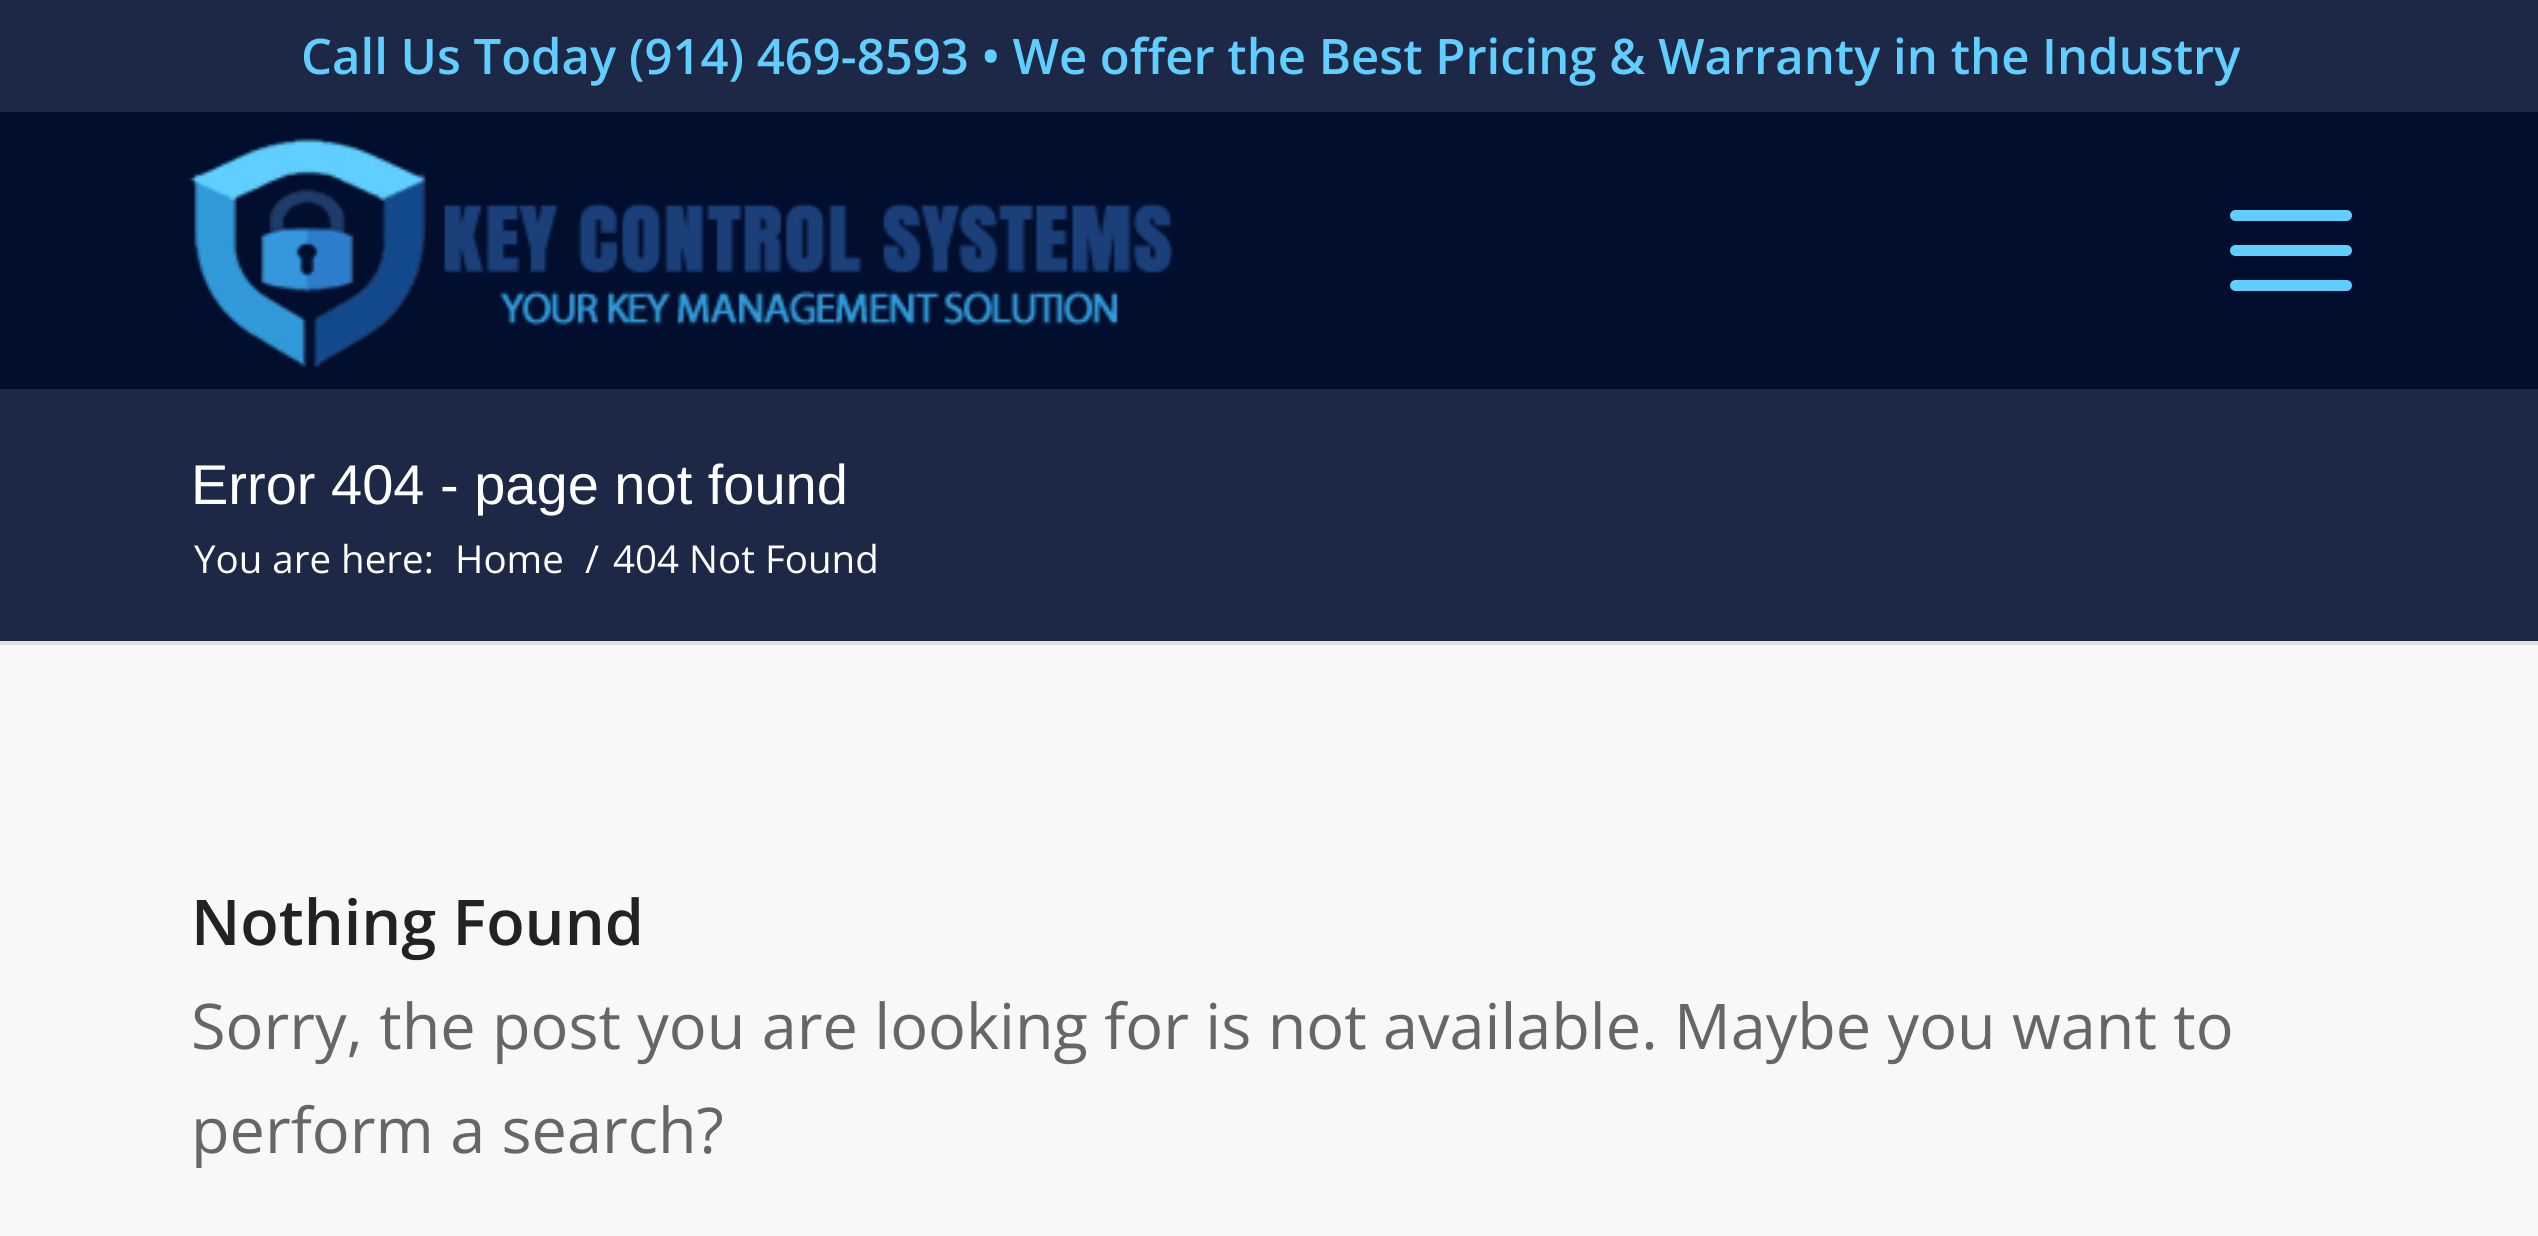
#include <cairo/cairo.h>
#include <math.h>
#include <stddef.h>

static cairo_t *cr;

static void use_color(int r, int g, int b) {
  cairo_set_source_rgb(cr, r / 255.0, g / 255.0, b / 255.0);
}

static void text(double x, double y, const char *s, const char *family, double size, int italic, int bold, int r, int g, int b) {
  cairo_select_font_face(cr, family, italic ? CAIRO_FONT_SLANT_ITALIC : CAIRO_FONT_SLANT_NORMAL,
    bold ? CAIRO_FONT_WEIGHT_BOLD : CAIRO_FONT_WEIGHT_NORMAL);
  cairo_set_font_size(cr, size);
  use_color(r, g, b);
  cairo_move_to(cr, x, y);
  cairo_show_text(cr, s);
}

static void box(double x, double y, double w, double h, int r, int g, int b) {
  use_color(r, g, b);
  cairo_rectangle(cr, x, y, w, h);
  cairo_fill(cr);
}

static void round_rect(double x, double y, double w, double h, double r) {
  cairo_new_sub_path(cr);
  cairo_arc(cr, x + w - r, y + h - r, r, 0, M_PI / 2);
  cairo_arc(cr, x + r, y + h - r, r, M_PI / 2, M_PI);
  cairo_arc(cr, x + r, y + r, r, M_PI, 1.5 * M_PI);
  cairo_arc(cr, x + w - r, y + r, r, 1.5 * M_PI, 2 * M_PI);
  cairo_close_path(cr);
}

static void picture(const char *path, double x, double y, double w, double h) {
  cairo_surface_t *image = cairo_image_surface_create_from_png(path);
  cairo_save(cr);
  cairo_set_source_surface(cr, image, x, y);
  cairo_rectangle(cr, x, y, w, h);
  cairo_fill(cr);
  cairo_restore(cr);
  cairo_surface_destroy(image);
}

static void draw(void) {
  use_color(29, 40, 71);
  cairo_paint(cr);
  box(0, 112, 2538, 277, 2, 14, 45);
  picture("img_01.png", 189, 138, 984, 230);
  use_color(96, 207, 255);
  round_rect(2230, 245, 122, 11, 5.5);
  cairo_fill(cr);
  round_rect(2230, 210, 122, 11, 5.5);
  cairo_fill(cr);
  round_rect(2230, 280, 122, 11, 5.5);
  cairo_fill(cr);
  box(0, 645, 2538, 591, 248, 248, 248);
  box(0, 641, 2538, 4, 225, 225, 225);
  text(301, 74, "Call Us Today (914) 469-8593 • We offer the Best Pricing & Warranty in the Industry", "Open Sans SemiBold", 49, 0, 0, 96, 207, 255);
  text(191, 504, "Error 404 - page not found", "Liberation Sans", 56, 0, 0, 255, 255, 255);
  text(194, 573, "You are here:", "Open Sans", 38.5, 0, 0, 255, 255, 255);
  text(455, 573, "Home", "Open Sans", 38.5, 0, 0, 255, 255, 255);
  text(585, 573, "/", "Open Sans", 38.5, 0, 0, 255, 255, 255);
  text(613, 573, "404 Not Found", "Open Sans", 38.5, 0, 0, 255, 255, 255);
  text(191, 945, "Nothing Found", "Open Sans SemiBold", 63, 0, 0, 34, 34, 34);
  text(191, 1049, "Sorry, the post you are looking for is not available. Maybe you want to", "Open Sans", 63, 0, 0, 102, 102, 102);
  text(191, 1153, "perform a search?", "Open Sans", 63, 0, 0, 102, 102, 102);
}

int main(void) {
  cairo_surface_t *surface = cairo_image_surface_create(CAIRO_FORMAT_RGB24, 2538, 1236);
  cr = cairo_create(surface);
  cairo_font_options_t *options = cairo_font_options_create();
  cairo_font_options_set_hint_metrics(options, CAIRO_HINT_METRICS_OFF);
  cairo_font_options_set_hint_style(options, CAIRO_HINT_STYLE_NONE);
  cairo_set_font_options(cr, options);
  cairo_set_miter_limit(cr, 4);
  draw();
  cairo_surface_write_to_png(surface, "out.png");
  cairo_font_options_destroy(options);
  cairo_destroy(cr);
  cairo_surface_destroy(surface);
  return 0;
}
